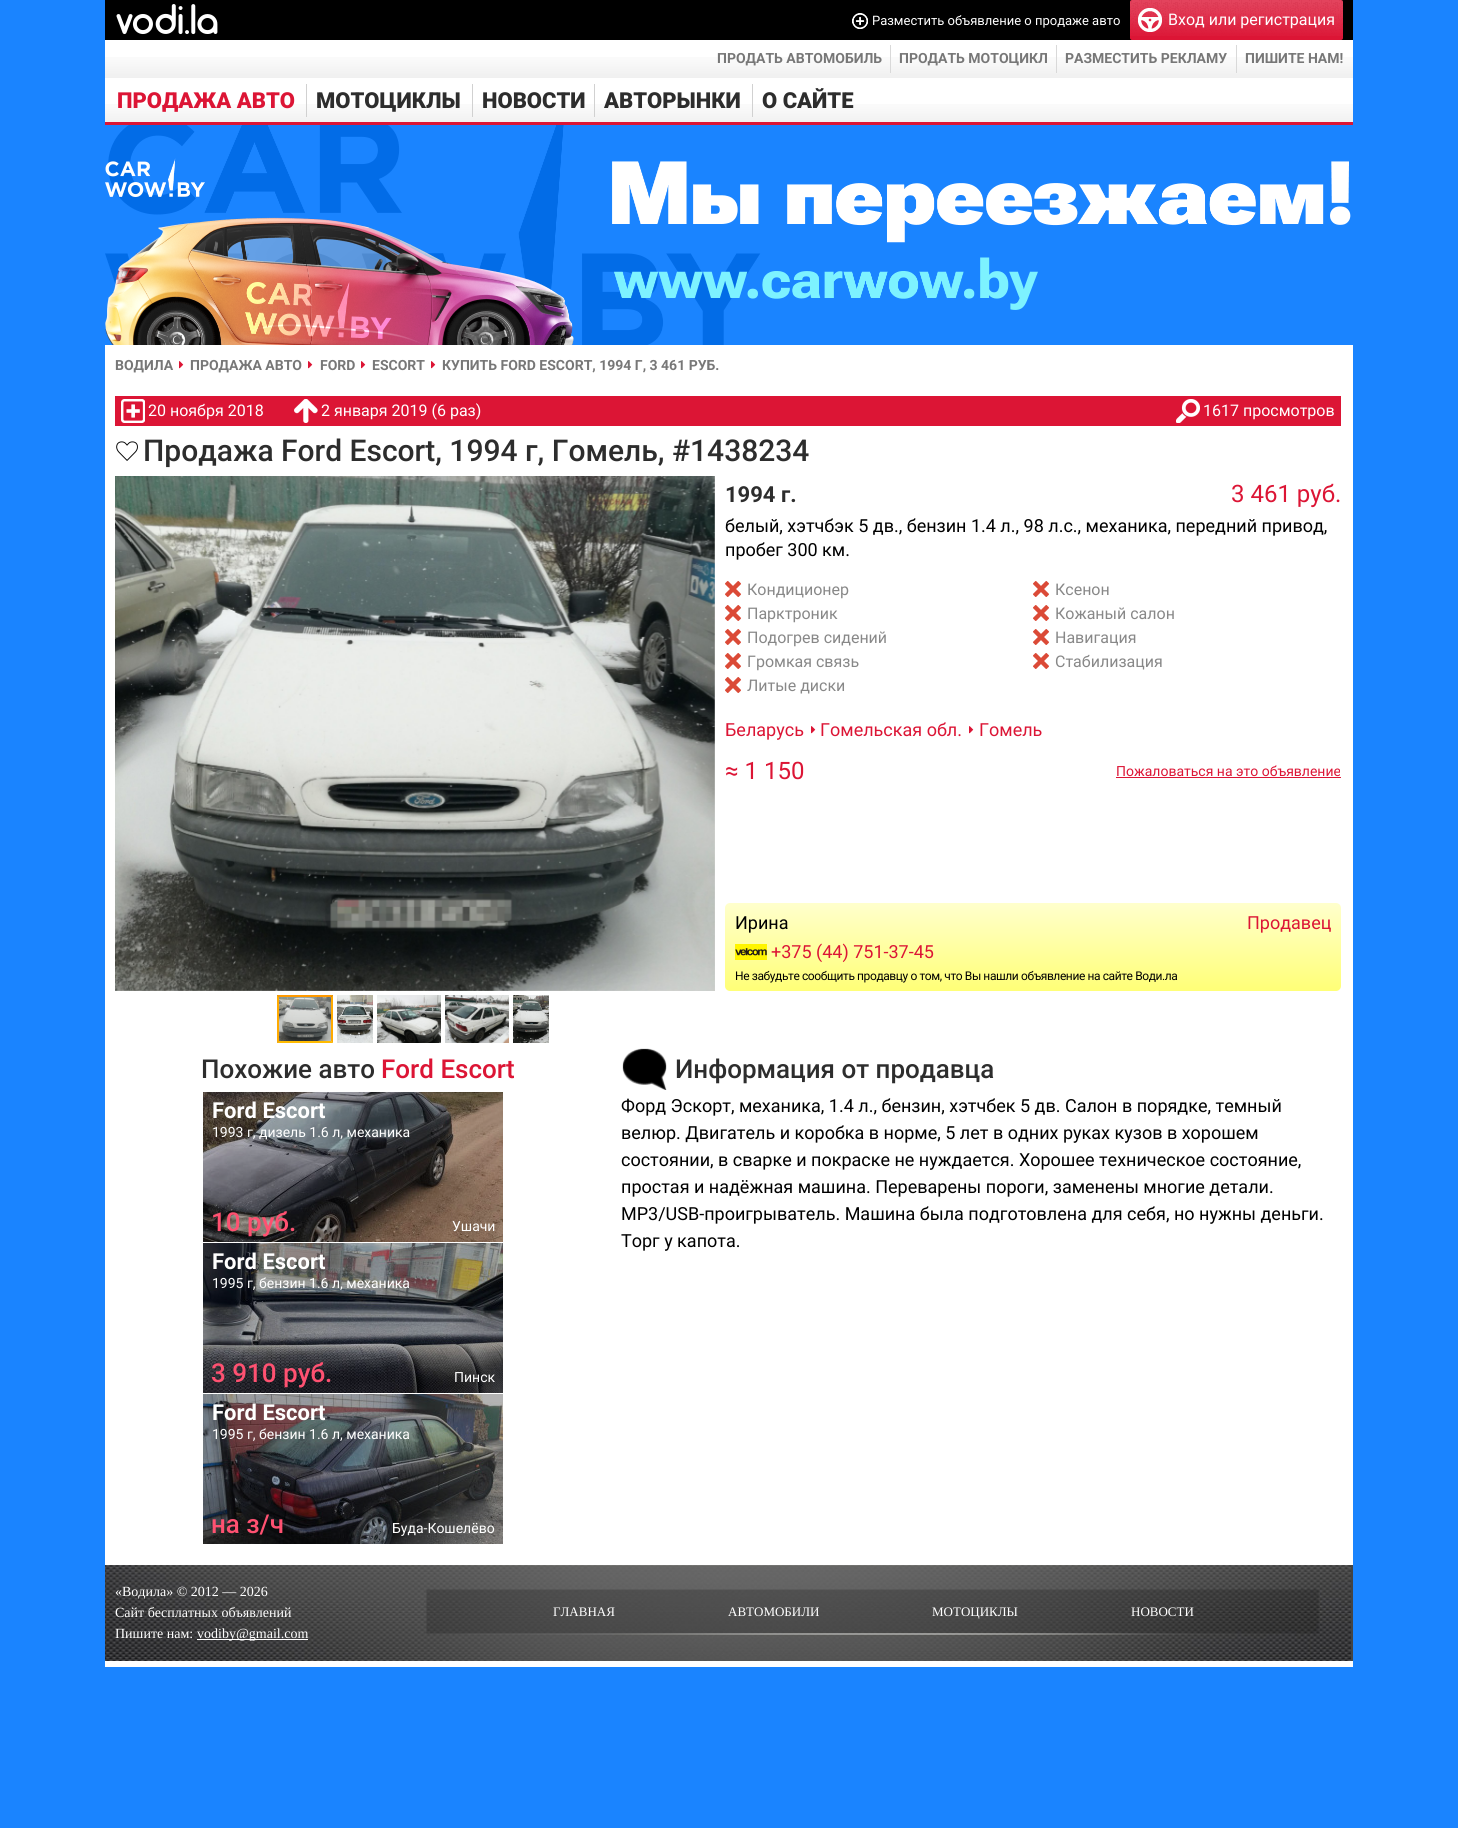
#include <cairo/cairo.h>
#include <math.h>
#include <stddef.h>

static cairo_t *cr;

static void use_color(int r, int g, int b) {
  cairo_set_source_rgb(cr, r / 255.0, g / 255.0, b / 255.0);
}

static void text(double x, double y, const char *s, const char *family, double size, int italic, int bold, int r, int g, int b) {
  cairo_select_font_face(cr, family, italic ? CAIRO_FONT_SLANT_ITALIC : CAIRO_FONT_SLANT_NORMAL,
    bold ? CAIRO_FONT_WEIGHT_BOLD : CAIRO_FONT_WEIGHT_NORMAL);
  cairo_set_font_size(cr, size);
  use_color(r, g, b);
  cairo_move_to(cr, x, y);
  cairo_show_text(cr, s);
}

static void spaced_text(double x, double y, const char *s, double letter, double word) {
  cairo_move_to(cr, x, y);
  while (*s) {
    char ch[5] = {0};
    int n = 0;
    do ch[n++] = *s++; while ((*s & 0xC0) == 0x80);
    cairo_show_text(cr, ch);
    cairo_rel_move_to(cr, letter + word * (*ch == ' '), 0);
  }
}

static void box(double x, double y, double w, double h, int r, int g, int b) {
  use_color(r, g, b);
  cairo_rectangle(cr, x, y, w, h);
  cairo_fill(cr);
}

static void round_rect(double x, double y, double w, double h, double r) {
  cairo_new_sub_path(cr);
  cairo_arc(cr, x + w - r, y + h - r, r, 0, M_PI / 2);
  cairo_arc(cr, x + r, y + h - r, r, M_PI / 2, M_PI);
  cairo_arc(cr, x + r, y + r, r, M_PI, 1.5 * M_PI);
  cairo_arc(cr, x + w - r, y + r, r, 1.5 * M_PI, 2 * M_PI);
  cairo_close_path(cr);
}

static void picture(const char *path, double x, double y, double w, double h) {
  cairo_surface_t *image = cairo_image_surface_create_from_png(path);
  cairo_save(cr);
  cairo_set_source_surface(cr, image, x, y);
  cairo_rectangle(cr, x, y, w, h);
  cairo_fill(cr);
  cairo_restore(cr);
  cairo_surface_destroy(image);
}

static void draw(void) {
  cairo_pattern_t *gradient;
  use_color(26, 132, 255);
  cairo_paint(cr);
  box(105, 40, 1248, 1627, 255, 255, 255);
  box(105, 0, 1248, 40, 0, 0, 0);
  picture("img_01.png", 116, 4, 102, 31);
  picture("img_02.png", 852, 13, 16, 16);
  use_color(220, 21, 53);
  round_rect(1130, 0, 213, 40, 2);
  cairo_fill(cr);
  picture("img_03.png", 1130, 0, 213, 36);
  picture("img_04.png", 1138, 8, 24, 24);
  picture("img_05.png", 105, 57, 1248, 21);
  box(890, 45, 1, 28, 217, 217, 217);
  box(1056, 45, 1, 28, 217, 217, 217);
  box(1236, 45, 1, 28, 217, 217, 217);
  picture("img_06.png", 105, 104, 1248, 18);
  box(105, 122, 1248, 3, 220, 21, 53);
  box(306, 84, 1, 33, 209, 209, 209);
  box(472, 84, 1, 33, 209, 209, 209);
  box(594, 84, 1, 33, 209, 209, 209);
  box(752, 84, 1, 33, 209, 209, 209);
  picture("img_07.png", 105, 125, 1248, 220);
  picture("img_08.png", 179, 361, 5, 8);
  picture("img_08.png", 308, 361, 5, 8);
  picture("img_08.png", 361, 361, 5, 8);
  picture("img_08.png", 431, 361, 5, 8);
  box(115, 396, 1226, 30, 220, 21, 53);
  picture("img_09.png", 121, 399, 24, 24);
  picture("img_10.png", 294, 399, 24, 24);
  picture("img_11.png", 1176, 399, 24, 24);
  picture("img_12.png", 116, 441, 22, 20);
  gradient = cairo_pattern_create_radial(0, 0, 0, 0, 0, 1);
  cairo_pattern_set_matrix(gradient, &(cairo_matrix_t){1.0 / 500, 0, 0, 1.0 / 429, -1.0 * 415 / 500, -1.0 * 734 / 429});
  cairo_pattern_add_color_stop_rgba(gradient, 0, 0.953, 0.949, 0.945, 1);
  cairo_pattern_add_color_stop_rgba(gradient, 0.13, 0.953, 0.949, 0.945, 1);
  cairo_pattern_add_color_stop_rgba(gradient, 1, 0.792, 0.792, 0.788, 1);
  cairo_set_source(cr, gradient);
  cairo_pattern_destroy(gradient);
  cairo_rectangle(cr, 115, 476, 600, 515);
  cairo_fill(cr);
  picture("img_13.png", 115, 476, 600, 515);
  picture("img_14.png", 277, 995, 56, 48);
  use_color(255, 153, 0);
  cairo_new_path(cr);
  cairo_move_to(cr, 277, 995);
  cairo_line_to(cr, 333, 995);
  cairo_line_to(cr, 331, 997);
  cairo_line_to(cr, 279, 997);
  cairo_close_path(cr);
  cairo_fill(cr);
  use_color(255, 170, 0);
  cairo_new_path(cr);
  cairo_move_to(cr, 333, 995);
  cairo_line_to(cr, 333, 1043);
  cairo_line_to(cr, 331, 1041);
  cairo_line_to(cr, 331, 997);
  cairo_close_path(cr);
  cairo_fill(cr);
  use_color(255, 187, 0);
  cairo_new_path(cr);
  cairo_move_to(cr, 333, 1043);
  cairo_line_to(cr, 277, 1043);
  cairo_line_to(cr, 279, 1041);
  cairo_line_to(cr, 331, 1041);
  cairo_close_path(cr);
  cairo_fill(cr);
  use_color(255, 170, 0);
  cairo_new_path(cr);
  cairo_move_to(cr, 277, 1043);
  cairo_line_to(cr, 277, 995);
  cairo_line_to(cr, 279, 997);
  cairo_line_to(cr, 279, 1041);
  cairo_close_path(cr);
  cairo_fill(cr);
  picture("img_15.png", 337, 995, 36, 48);
  picture("img_16.png", 377, 995, 64, 48);
  picture("img_17.png", 445, 995, 64, 48);
  picture("img_18.png", 513, 995, 36, 48);
  picture("img_19.png", 725, 581, 16, 16);
  picture("img_19.png", 1033, 581, 16, 16);
  picture("img_19.png", 725, 605, 16, 16);
  picture("img_19.png", 1033, 605, 16, 16);
  picture("img_19.png", 725, 629, 16, 16);
  picture("img_19.png", 1033, 629, 16, 16);
  picture("img_19.png", 725, 653, 16, 16);
  picture("img_19.png", 1033, 653, 16, 16);
  picture("img_19.png", 725, 677, 16, 16);
  picture("img_08.png", 811, 726, 5, 8);
  picture("img_08.png", 969, 726, 5, 8);
  box(1116, 777, 225, 1, 220, 21, 53);
  gradient = cairo_pattern_create_linear(1033, 903, 1033, 991);
  cairo_pattern_add_color_stop_rgba(gradient, 0, 1, 1, 0.8, 1);
  cairo_pattern_add_color_stop_rgba(gradient, 1, 1, 1, 0.467, 1);
  cairo_set_source(cr, gradient);
  cairo_pattern_destroy(gradient);
  round_rect(725, 903, 616, 88, 5);
  cairo_fill(cr);
  picture("img_20.png", 735, 944, 32, 16);
  picture("img_21.png", 203, 1092, 300, 150);
  picture("img_22.png", 203, 1243, 300, 150);
  picture("img_23.png", 203, 1394, 300, 150);
  picture("img_24.png", 622, 1048, 45, 42);
  box(1351, 1565, 2, 96, 68, 68, 68);
  picture("img_25.png", 105, 1565, 1246, 96);
  box(197, 1639, 111, 1, 255, 255, 255);
  text(872, 25, "Разместить объявление о продаже авто", "Roboto", 13, 0, 0, 255, 255, 255);
  text(1168, 25, "Вход или регистрация", "Roboto", 16, 0, 0, 255, 255, 255);
  text(717, 63, "ПРОДАТЬ АВТОМОБИЛЬ", "Roboto", 14, 0, 1, 119, 119, 119);
  text(899, 63, "ПРОДАТЬ МОТОЦИКЛ", "Roboto", 14, 0, 1, 119, 119, 119);
  text(1065, 63, "РАЗМЕСТИТЬ РЕКЛАМУ", "Roboto", 14, 0, 1, 119, 119, 119);
  text(1245, 63, "ПИШИТЕ НАМ!", "Roboto", 14, 0, 1, 119, 119, 119);
  text(117, 108, "ПРОДАЖА АВТО", "Roboto Black", 22, 0, 0, 220, 21, 53);
  text(316, 108, "МОТОЦИКЛЫ", "Roboto Black", 22, 0, 0, 45, 45, 45);
  text(482, 108, "НОВОСТИ", "Roboto Black", 22, 0, 0, 45, 45, 45);
  text(604, 108, "АВТОРЫНКИ", "Roboto Black", 22, 0, 0, 45, 45, 45);
  text(762, 108, "О САЙТЕ", "Roboto Black", 22, 0, 0, 45, 45, 45);
  text(115, 370, "ВОДИЛА", "Roboto", 14, 0, 1, 119, 119, 119);
  text(190, 370, "ПРОДАЖА АВТО", "Roboto", 14, 0, 1, 119, 119, 119);
  text(320, 370, "FORD", "Roboto", 14, 0, 1, 119, 119, 119);
  text(372, 370, "ESCORT", "Roboto", 14, 0, 1, 119, 119, 119);
  text(442, 370, "КУПИТЬ FORD ESCORT, 1994 Г, 3 461 РУБ.", "Roboto", 14, 0, 1, 119, 119, 119);
  text(148, 416, "20 ноября 2018", "Roboto", 16, 0, 0, 255, 255, 255);
  text(321, 416, "2 января 2019 (6 раз)", "Roboto", 16, 0, 0, 255, 255, 255);
  text(1203, 416, "1617 просмотров", "Roboto", 16, 0, 0, 255, 255, 255);
  text(143, 461, "Продажа Ford Escort, 1994 г, Гомель, #1438234", "Roboto Medium", 30, 0, 0, 45, 45, 45);
  text(725, 502, "1994 г.", "Roboto", 22, 0, 1, 45, 45, 45);
  text(1231, 502, "3 461 руб.", "Roboto", 24, 0, 0, 220, 21, 53);
  text(725, 532, "белый, хэтчбэк 5 дв., бензин 1.4 л., 98 л.с., механика, передний привод,", "Roboto", 18, 0, 0, 0, 0, 0);
  text(725, 556, "пробег 300 км.", "Roboto", 18, 0, 0, 0, 0, 0);
  text(747, 595, "Кондиционер", "Roboto", 16, 0, 0, 136, 136, 136);
  text(1055, 595, "Ксенон", "Roboto", 16, 0, 0, 136, 136, 136);
  text(747, 619, "Парктроник", "Roboto", 16, 0, 0, 136, 136, 136);
  text(1055, 619, "Кожаный салон", "Roboto", 16, 0, 0, 136, 136, 136);
  text(747, 643, "Подогрев сидений", "Roboto", 16, 0, 0, 136, 136, 136);
  text(1055, 643, "Навигация", "Roboto", 16, 0, 0, 136, 136, 136);
  text(747, 667, "Громкая связь", "Roboto", 16, 0, 0, 136, 136, 136);
  text(1055, 667, "Стабилизация", "Roboto", 16, 0, 0, 136, 136, 136);
  text(747, 691, "Литые диски", "Roboto", 16, 0, 0, 136, 136, 136);
  text(725, 736, "Беларусь", "Roboto", 18, 0, 0, 220, 21, 53);
  text(820, 736, "Гомельская обл.", "Roboto", 18, 0, 0, 220, 21, 53);
  text(979, 736, "Гомель", "Roboto", 18, 0, 0, 220, 21, 53);
  text(725, 779, "≈ 1 150", "Roboto", 24, 0, 0, 220, 21, 53);
  text(1116, 776, "Пожаловаться на это объявление", "Roboto", 14, 0, 0, 220, 21, 53);
  text(735, 929, "Ирина", "Roboto", 18, 0, 0, 0, 0, 0);
  text(1247, 929, "Продавец", "Roboto", 18, 0, 0, 220, 21, 53);
  text(771, 958, "+375 (44) 751-37-45", "Roboto", 18, 0, 0, 220, 21, 53);
  cairo_set_font_size(cr, 12);
  use_color(0, 0, 0);
  spaced_text(735, 980, "Не забудьте сообщить продавцу о том, что Вы нашли объявление на сайте Води.ла", -0.4, 0);
  text(201, 1078, "Похожие авто", "Roboto Medium", 26, 0, 0, 45, 45, 45);
  text(381, 1078, "Ford Escort", "Roboto Medium", 26, 0, 0, 220, 21, 53);
  text(212, 1118, "Ford Escort", "Roboto", 22, 0, 1, 255, 255, 255);
  text(212, 1137, "1993 г, дизель 1.6 л, механика", "Roboto", 14, 0, 0, 255, 255, 255);
  text(211, 1231, "10 руб.", "Roboto Medium", 26, 0, 0, 255, 81, 113);
  text(452, 1231, "Ушачи", "Roboto", 14, 0, 0, 255, 255, 255);
  text(212, 1269, "Ford Escort", "Roboto", 22, 0, 1, 255, 255, 255);
  text(212, 1288, "1995 г, бензин 1.6 л, механика", "Roboto", 14, 0, 0, 255, 255, 255);
  text(211, 1382, "3 910 руб.", "Roboto Medium", 26, 0, 0, 255, 81, 113);
  text(454, 1382, "Пинск", "Roboto", 14, 0, 0, 255, 255, 255);
  text(212, 1420, "Ford Escort", "Roboto", 22, 0, 1, 255, 255, 255);
  text(212, 1439, "1995 г, бензин 1.6 л, механика", "Roboto", 14, 0, 0, 255, 255, 255);
  text(211, 1533, "на з/ч", "Roboto Medium", 26, 0, 0, 255, 81, 113);
  text(392, 1533, "Буда-Кошелёво", "Roboto", 14, 0, 0, 255, 255, 255);
  text(675, 1078, "Информация от продавца", "Roboto Medium", 26, 0, 0, 45, 45, 45);
  text(621, 1112, "Форд Эскорт, механика, 1.4 л., бензин, хэтчбек 5 дв. Салон в порядке, темный", "Roboto", 18, 0, 0, 0, 0, 0);
  text(621, 1139, "велюр. Двигатель и коробка в норме, 5 лет в одних руках кузов в хорошем", "Roboto", 18, 0, 0, 0, 0, 0);
  text(621, 1166, "состоянии, в сварке и покраске не нуждается. Хорошее техническое состояние,", "Roboto", 18, 0, 0, 0, 0, 0);
  text(621, 1193, "простая и надёжная машина. Переварены пороги, заменены многие детали.", "Roboto", 18, 0, 0, 0, 0, 0);
  text(621, 1220, "МР3/USB-проигрыватель. Машина была подготовлена для себя, но нужны деньги.", "Roboto", 18, 0, 0, 0, 0, 0);
  text(621, 1247, "Торг у капота.", "Roboto", 18, 0, 0, 0, 0, 0);
  text(115, 1596, "«Водила» © 2012 — 2026", "Liberation Serif", 14, 0, 0, 255, 255, 255);
  text(115, 1617, "Сайт бесплатных объявлений", "Liberation Serif", 14, 0, 0, 255, 255, 255);
  text(115, 1638, "Пишите нам:", "Liberation Serif", 14, 0, 0, 255, 255, 255);
  text(197, 1638, "vodiby@gmail.com", "Liberation Serif", 14, 0, 0, 255, 255, 255);
  text(553, 1616, "ГЛАВНАЯ", "Liberation Serif", 13, 0, 0, 255, 255, 255);
  text(728, 1616, "АВТОМОБИЛИ", "Liberation Serif", 13, 0, 0, 255, 255, 255);
  text(932, 1616, "МОТОЦИКЛЫ", "Liberation Serif", 13, 0, 0, 255, 255, 255);
  text(1131, 1616, "НОВОСТИ", "Liberation Serif", 13, 0, 0, 255, 255, 255);
}

int main(void) {
  cairo_surface_t *surface = cairo_image_surface_create(CAIRO_FORMAT_RGB24, 1458, 1828);
  cr = cairo_create(surface);
  cairo_font_options_t *options = cairo_font_options_create();
  cairo_font_options_set_hint_metrics(options, CAIRO_HINT_METRICS_OFF);
  cairo_font_options_set_hint_style(options, CAIRO_HINT_STYLE_NONE);
  cairo_set_font_options(cr, options);
  cairo_set_miter_limit(cr, 4);
  draw();
  cairo_surface_write_to_png(surface, "out.png");
  cairo_font_options_destroy(options);
  cairo_destroy(cr);
  cairo_surface_destroy(surface);
  return 0;
}
